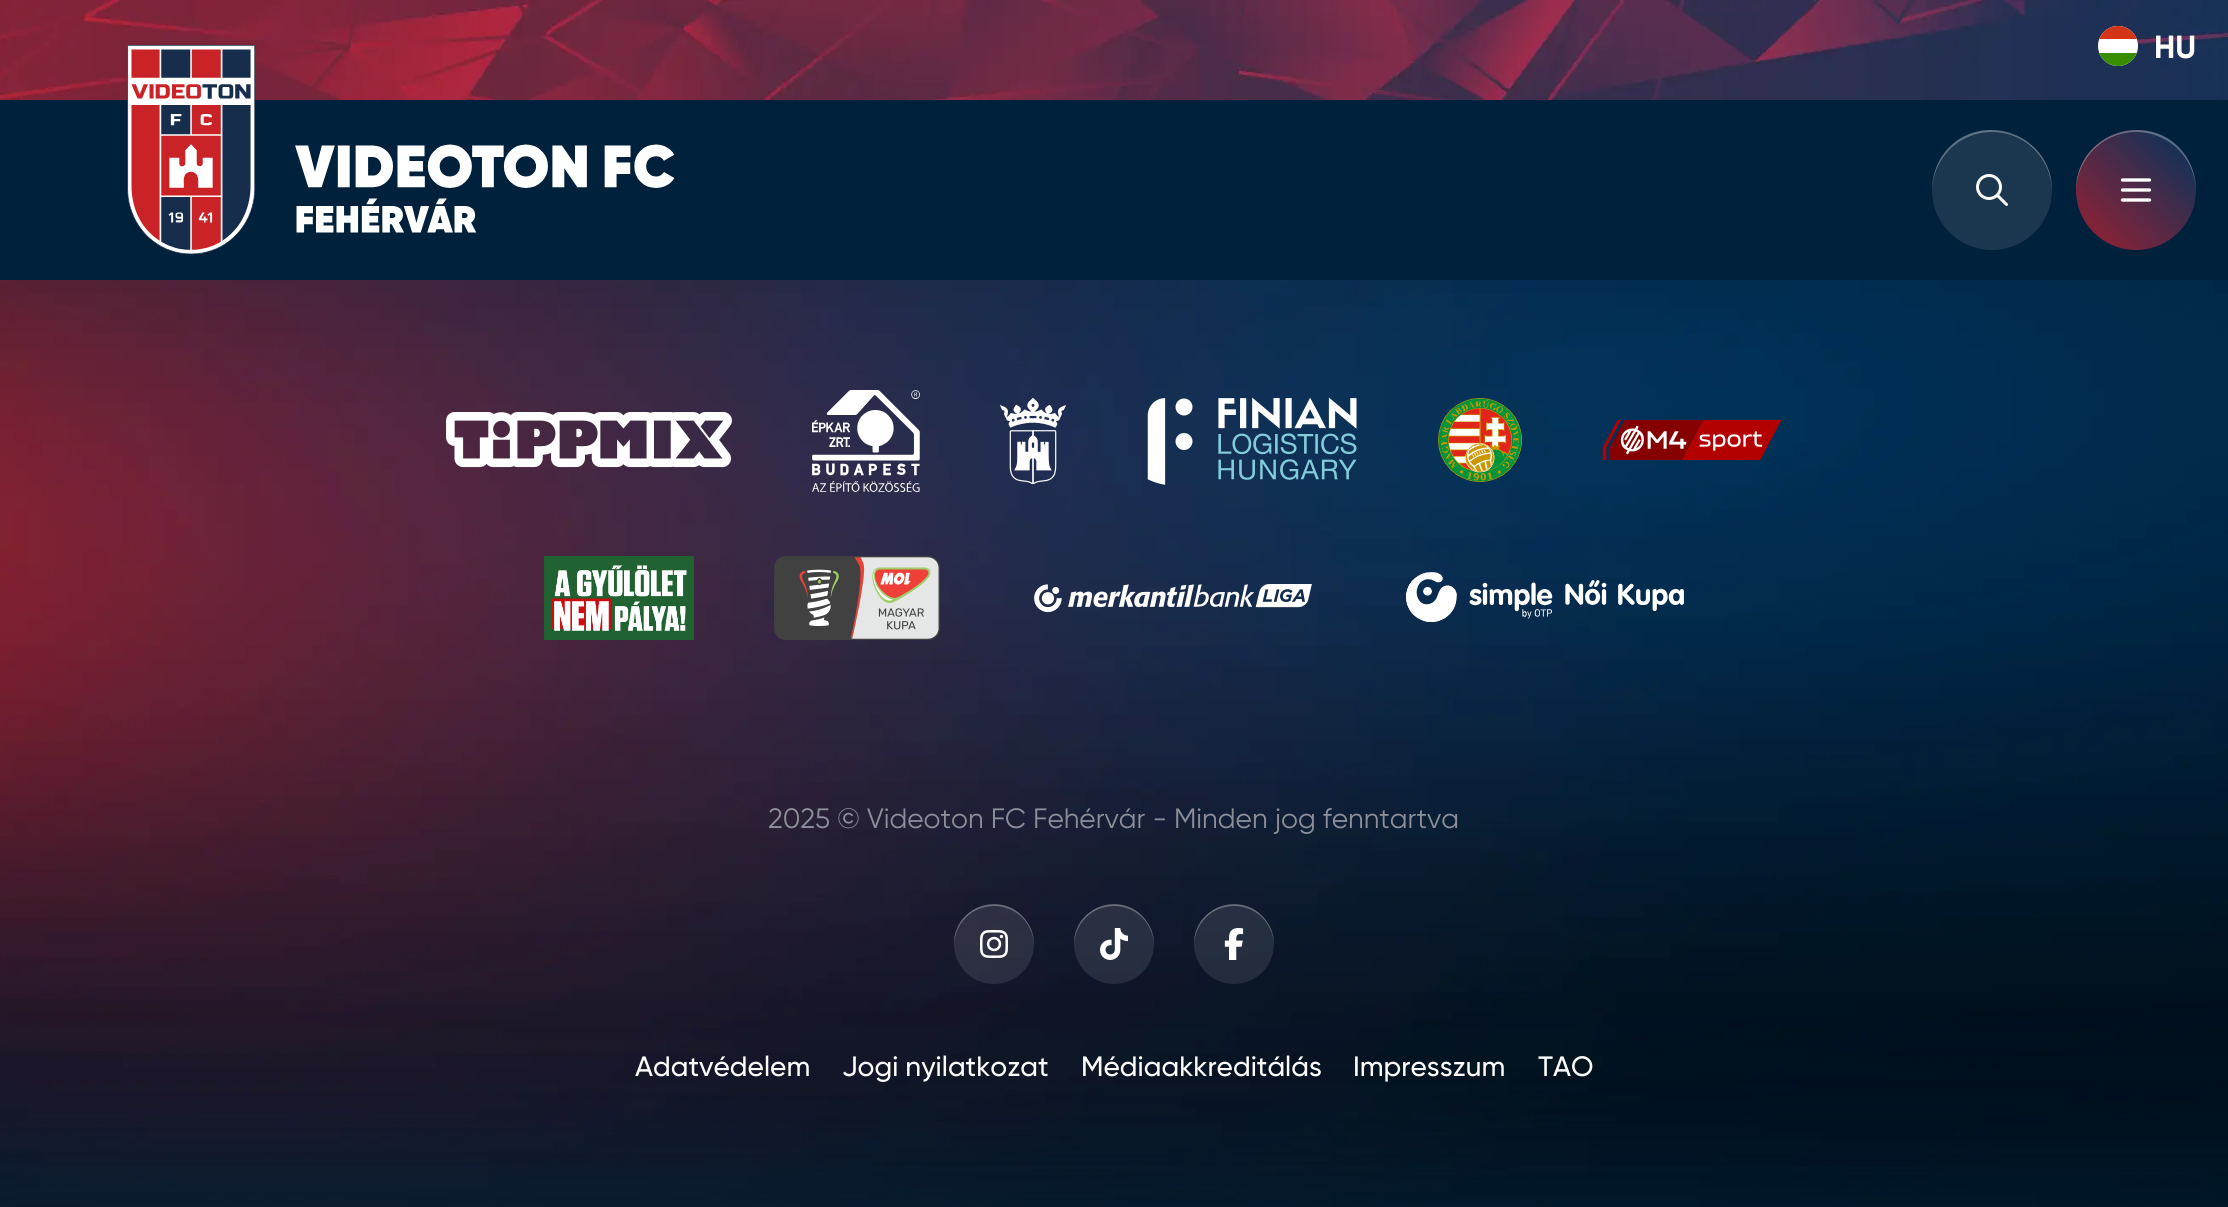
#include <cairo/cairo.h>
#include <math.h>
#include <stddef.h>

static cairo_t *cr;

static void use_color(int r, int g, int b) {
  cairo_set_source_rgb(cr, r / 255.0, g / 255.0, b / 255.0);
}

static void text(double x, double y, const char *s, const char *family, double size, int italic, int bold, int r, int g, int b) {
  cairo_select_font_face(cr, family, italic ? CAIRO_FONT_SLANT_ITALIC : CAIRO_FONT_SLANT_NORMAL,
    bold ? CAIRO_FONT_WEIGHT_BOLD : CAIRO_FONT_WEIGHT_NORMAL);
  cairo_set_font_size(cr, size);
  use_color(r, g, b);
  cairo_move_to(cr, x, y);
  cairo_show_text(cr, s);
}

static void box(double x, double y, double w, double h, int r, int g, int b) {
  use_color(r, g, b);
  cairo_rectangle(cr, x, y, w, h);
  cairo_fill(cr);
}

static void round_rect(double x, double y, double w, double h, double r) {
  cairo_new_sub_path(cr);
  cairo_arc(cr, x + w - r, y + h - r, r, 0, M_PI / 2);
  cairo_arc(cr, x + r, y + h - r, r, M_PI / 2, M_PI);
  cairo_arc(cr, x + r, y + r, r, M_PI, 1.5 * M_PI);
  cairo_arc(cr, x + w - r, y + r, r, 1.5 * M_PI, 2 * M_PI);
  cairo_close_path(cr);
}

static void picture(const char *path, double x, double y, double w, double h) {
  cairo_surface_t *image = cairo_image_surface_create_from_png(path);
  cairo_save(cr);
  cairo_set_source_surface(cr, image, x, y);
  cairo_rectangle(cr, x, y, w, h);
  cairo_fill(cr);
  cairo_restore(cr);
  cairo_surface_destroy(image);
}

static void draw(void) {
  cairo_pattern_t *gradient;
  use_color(0, 33, 59);
  cairo_paint(cr);
  picture("img_01.png", 0, 0, 2228, 100);
  use_color(255, 255, 255);
  cairo_arc(cr, 2118, 46, 20, 0, 2 * M_PI);
  cairo_fill(cr);
  cairo_save(cr);
  round_rect(2098, 26, 40, 40, 20);
  cairo_clip(cr);
  box(2099, 53, 38, 13, 56, 141, 0);
  box(2099, 26, 38, 13, 212, 53, 22);
  cairo_restore(cr);
  picture("img_02.png", 127, 44, 548, 211);
  use_color(26, 55, 79);
  cairo_arc(cr, 1992, 190, 60, 0, 2 * M_PI);
  cairo_fill(cr);
  cairo_set_source_rgba(cr, 1, 1, 1, 0.3);
  cairo_new_path(cr);
  cairo_move_to(cr, 1992, 132);
  cairo_curve_to(cr, 2025, 132, 2051, 158, 2052, 191);
  cairo_curve_to(cr, 2053, 132, 1975, 107, 1942, 156);
  cairo_curve_to(cr, 1935, 167, 1932, 179, 1932, 191);
  cairo_curve_to(cr, 1933, 158, 1959, 132, 1992, 132);
  cairo_close_path(cr);
  cairo_fill(cr);
  picture("img_03.png", 1976, 174, 32, 32);
  gradient = cairo_pattern_create_linear(2195, 129, 2077, 251);
  cairo_pattern_add_color_stop_rgba(gradient, 0, 0, 0.204, 0.365, 1);
  cairo_pattern_add_color_stop_rgba(gradient, 1, 0.612, 0.125, 0.192, 1);
  cairo_set_source(cr, gradient);
  cairo_pattern_destroy(gradient);
  cairo_arc(cr, 2136, 190, 60, 0, 2 * M_PI);
  cairo_fill(cr);
  cairo_set_source_rgba(cr, 1, 1, 1, 0.3);
  cairo_new_path(cr);
  cairo_move_to(cr, 2136, 132);
  cairo_curve_to(cr, 2169, 132, 2195, 158, 2196, 191);
  cairo_curve_to(cr, 2196, 179, 2193, 167, 2186, 156);
  cairo_curve_to(cr, 2153, 107, 2075, 132, 2076, 191);
  cairo_curve_to(cr, 2077, 158, 2103, 132, 2136, 132);
  cairo_close_path(cr);
  cairo_fill(cr);
  cairo_new_path(cr);
  cairo_move_to(cr, 2122.5, 180);
  cairo_line_to(cr, 2149.5, 180);
  cairo_move_to(cr, 2122.5, 190);
  cairo_line_to(cr, 2149.5, 190);
  cairo_move_to(cr, 2122.5, 200);
  cairo_line_to(cr, 2149.5, 200);
  use_color(255, 255, 255);
  cairo_set_line_width(cr, 3.3);
  cairo_set_line_cap(cr, CAIRO_LINE_CAP_ROUND);
  cairo_set_line_join(cr, CAIRO_LINE_JOIN_ROUND);
  cairo_stroke(cr);
  picture("img_04.png", 0, 280, 2228, 927);
  picture("img_05.png", 446, 412, 286, 56);
  picture("img_06.png", 812, 390, 108, 102);
  picture("img_07.png", 1000, 398, 66, 86);
  picture("img_08.png", 1147, 397, 210, 88);
  picture("img_09.png", 1438, 398, 84, 84);
  picture("img_10.png", 1602, 420, 180, 40);
  picture("img_11.png", 544, 556, 150, 84);
  picture("img_12.png", 774, 556, 166, 84);
  picture("img_13.png", 1034, 584, 278, 29);
  picture("img_14.png", 1406, 572, 278, 50);
  cairo_set_source_rgba(cr, 1, 1, 1, 0.1);
  cairo_arc(cr, 994, 944, 40, 0, 2 * M_PI);
  cairo_fill(cr);
  cairo_set_source_rgba(cr, 1, 1, 1, 0.3);
  cairo_new_path(cr);
  cairo_move_to(cr, 994, 906);
  cairo_curve_to(cr, 1016, 906, 1033, 923, 1034, 945);
  cairo_curve_to(cr, 1034, 937, 1032, 929, 1027, 922);
  cairo_curve_to(cr, 1005, 889, 953, 905, 954, 945);
  cairo_curve_to(cr, 955, 923, 972, 906, 994, 906);
  cairo_close_path(cr);
  cairo_fill(cr);
  picture("img_15.png", 980, 930, 28, 28);
  cairo_set_source_rgba(cr, 1, 1, 1, 0.1);
  cairo_arc(cr, 1114, 944, 40, 0, 2 * M_PI);
  cairo_fill(cr);
  cairo_set_source_rgba(cr, 1, 1, 1, 0.3);
  cairo_new_path(cr);
  cairo_move_to(cr, 1114, 906);
  cairo_curve_to(cr, 1136, 906, 1153, 923, 1154, 945);
  cairo_curve_to(cr, 1154, 937, 1152, 929, 1147, 922);
  cairo_curve_to(cr, 1125, 889, 1073, 905, 1074, 945);
  cairo_curve_to(cr, 1075, 923, 1092, 906, 1114, 906);
  cairo_close_path(cr);
  cairo_fill(cr);
  picture("img_16.png", 1100, 928, 28, 32);
  cairo_set_source_rgba(cr, 1, 1, 1, 0.1);
  cairo_arc(cr, 1234, 944, 40, 0, 2 * M_PI);
  cairo_fill(cr);
  cairo_set_source_rgba(cr, 1, 1, 1, 0.3);
  cairo_new_path(cr);
  cairo_move_to(cr, 1234, 906);
  cairo_curve_to(cr, 1256, 906, 1273, 923, 1274, 945);
  cairo_curve_to(cr, 1274, 937, 1272, 929, 1267, 922);
  cairo_curve_to(cr, 1245, 889, 1193, 905, 1194, 945);
  cairo_curve_to(cr, 1195, 923, 1212, 906, 1234, 906);
  cairo_close_path(cr);
  cairo_fill(cr);
  picture("img_17.png", 1224, 928, 20, 32);
  text(2154, 58, "HU", "Gilroy", 32, 0, 1, 255, 255, 255);
  text(768, 828, "2025 © Videoton FC Fehérvár - Minden jog fenntartva", "Gilroy", 28, 0, 0, 140, 143, 154);
  text(635, 1076, "Adatvédelem", "Gilroy Medium", 28, 0, 0, 255, 255, 255);
  text(842, 1076, "Jogi nyilatkozat", "Gilroy Medium", 28, 0, 0, 255, 255, 255);
  text(1081, 1076, "Médiaakkreditálás", "Gilroy Medium", 28, 0, 0, 255, 255, 255);
  text(1353, 1076, "Impresszum", "Gilroy Medium", 28, 0, 0, 255, 255, 255);
  text(1538, 1076, "TAO", "Gilroy Medium", 28, 0, 0, 255, 255, 255);
}

int main(void) {
  cairo_surface_t *surface = cairo_image_surface_create(CAIRO_FORMAT_RGB24, 2228, 1207);
  cr = cairo_create(surface);
  cairo_font_options_t *options = cairo_font_options_create();
  cairo_font_options_set_hint_metrics(options, CAIRO_HINT_METRICS_OFF);
  cairo_font_options_set_hint_style(options, CAIRO_HINT_STYLE_NONE);
  cairo_set_font_options(cr, options);
  cairo_set_miter_limit(cr, 4);
  draw();
  cairo_surface_write_to_png(surface, "out.png");
  cairo_font_options_destroy(options);
  cairo_destroy(cr);
  cairo_surface_destroy(surface);
  return 0;
}
